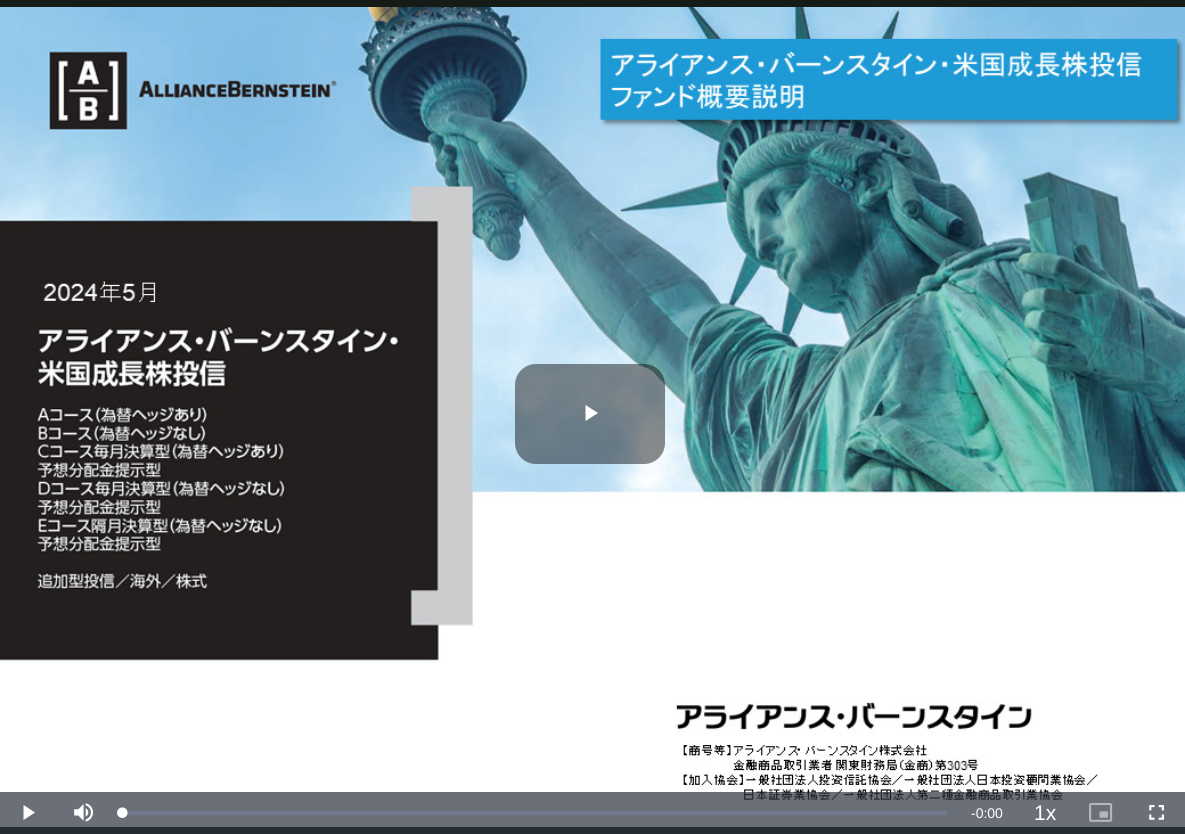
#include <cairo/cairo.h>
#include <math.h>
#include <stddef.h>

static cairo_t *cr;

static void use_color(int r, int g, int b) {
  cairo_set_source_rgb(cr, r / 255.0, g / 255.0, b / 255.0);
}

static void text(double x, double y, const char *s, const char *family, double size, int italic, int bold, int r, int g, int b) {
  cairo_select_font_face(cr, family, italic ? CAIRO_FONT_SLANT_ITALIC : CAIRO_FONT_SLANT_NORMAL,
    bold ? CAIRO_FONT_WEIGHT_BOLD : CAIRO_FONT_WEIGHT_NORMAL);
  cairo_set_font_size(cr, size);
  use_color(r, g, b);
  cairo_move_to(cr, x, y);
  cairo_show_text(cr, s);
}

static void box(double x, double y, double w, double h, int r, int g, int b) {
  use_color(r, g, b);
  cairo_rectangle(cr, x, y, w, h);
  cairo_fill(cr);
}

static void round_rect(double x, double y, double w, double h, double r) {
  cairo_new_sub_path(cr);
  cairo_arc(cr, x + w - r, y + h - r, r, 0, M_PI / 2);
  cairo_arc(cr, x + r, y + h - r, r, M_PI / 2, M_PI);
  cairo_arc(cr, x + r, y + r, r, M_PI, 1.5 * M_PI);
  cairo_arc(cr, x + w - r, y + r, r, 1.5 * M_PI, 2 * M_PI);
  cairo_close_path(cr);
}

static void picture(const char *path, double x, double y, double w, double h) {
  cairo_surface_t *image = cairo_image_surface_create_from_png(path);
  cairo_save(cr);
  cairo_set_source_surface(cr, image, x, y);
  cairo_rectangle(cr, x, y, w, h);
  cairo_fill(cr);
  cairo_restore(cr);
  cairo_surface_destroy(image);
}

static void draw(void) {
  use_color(21, 27, 23);
  cairo_paint(cr);
  picture("img_01.png", 0, 7, 1185, 820);
  cairo_set_source_rgba(cr, 0, 0, 0, 0.45);
  round_rect(515, 364, 150, 100, 21);
  cairo_fill(cr);
  use_color(255, 255, 255);
  cairo_new_path(cr);
  cairo_move_to(cr, 585.5, 405);
  cairo_line_to(cr, 585.5, 421);
  cairo_line_to(cr, 598, 413);
  cairo_close_path(cr);
  cairo_fill(cr);
  cairo_set_source_rgba(cr, 0.169, 0.2, 0.247, 0.7);
  cairo_rectangle(cr, 0, 792, 1185, 42);
  cairo_fill(cr);
  use_color(255, 255, 255);
  cairo_new_path(cr);
  cairo_move_to(cr, 23.5, 805);
  cairo_line_to(cr, 23.5, 820);
  cairo_line_to(cr, 35, 812.5);
  cairo_close_path(cr);
  cairo_fill(cr);
  picture("img_02.png", 74, 803, 19, 19);
  box(122, 811, 825, 4, 111, 123, 140);
  picture("img_03.png", 117, 807, 11, 11);
  picture("img_04.png", 1089, 802, 24, 20);
  picture("img_05.png", 1149, 805, 15, 15);
  text(971, 818, "-0:00", "Liberation Sans", 14, 0, 0, 255, 255, 255);
  text(1034, 820, "1x", "Liberation Sans", 21, 0, 0, 255, 255, 255);
}

int main(void) {
  cairo_surface_t *surface = cairo_image_surface_create(CAIRO_FORMAT_RGB24, 1185, 834);
  cr = cairo_create(surface);
  cairo_font_options_t *options = cairo_font_options_create();
  cairo_font_options_set_hint_metrics(options, CAIRO_HINT_METRICS_OFF);
  cairo_font_options_set_hint_style(options, CAIRO_HINT_STYLE_NONE);
  cairo_set_font_options(cr, options);
  cairo_set_miter_limit(cr, 4);
  draw();
  cairo_surface_write_to_png(surface, "out.png");
  cairo_font_options_destroy(options);
  cairo_destroy(cr);
  cairo_surface_destroy(surface);
  return 0;
}
